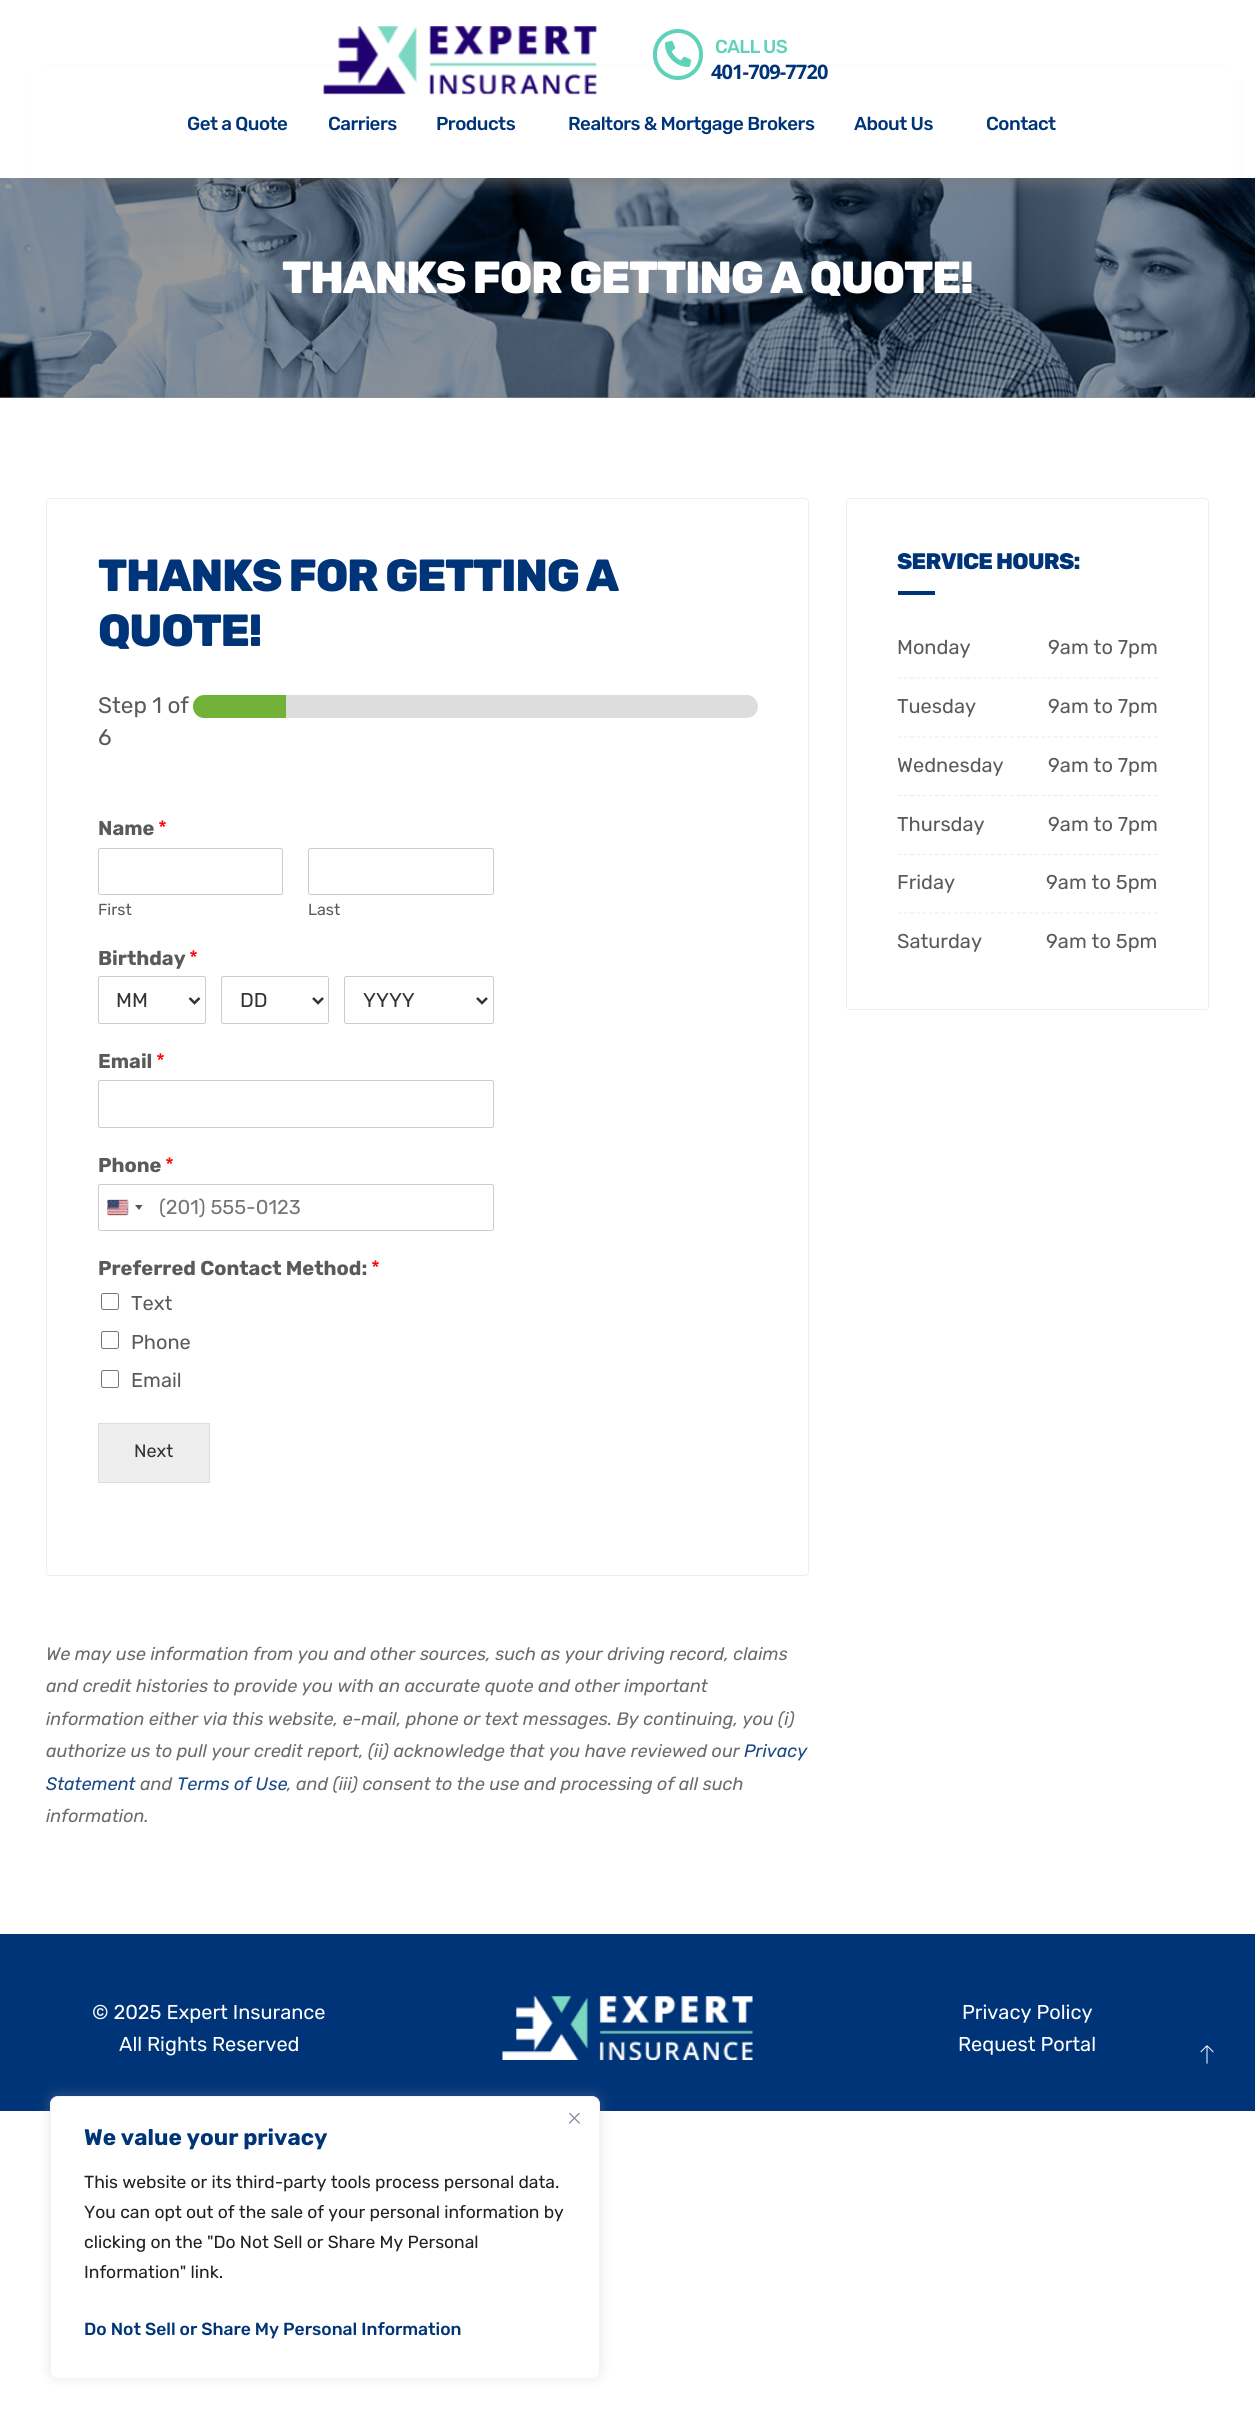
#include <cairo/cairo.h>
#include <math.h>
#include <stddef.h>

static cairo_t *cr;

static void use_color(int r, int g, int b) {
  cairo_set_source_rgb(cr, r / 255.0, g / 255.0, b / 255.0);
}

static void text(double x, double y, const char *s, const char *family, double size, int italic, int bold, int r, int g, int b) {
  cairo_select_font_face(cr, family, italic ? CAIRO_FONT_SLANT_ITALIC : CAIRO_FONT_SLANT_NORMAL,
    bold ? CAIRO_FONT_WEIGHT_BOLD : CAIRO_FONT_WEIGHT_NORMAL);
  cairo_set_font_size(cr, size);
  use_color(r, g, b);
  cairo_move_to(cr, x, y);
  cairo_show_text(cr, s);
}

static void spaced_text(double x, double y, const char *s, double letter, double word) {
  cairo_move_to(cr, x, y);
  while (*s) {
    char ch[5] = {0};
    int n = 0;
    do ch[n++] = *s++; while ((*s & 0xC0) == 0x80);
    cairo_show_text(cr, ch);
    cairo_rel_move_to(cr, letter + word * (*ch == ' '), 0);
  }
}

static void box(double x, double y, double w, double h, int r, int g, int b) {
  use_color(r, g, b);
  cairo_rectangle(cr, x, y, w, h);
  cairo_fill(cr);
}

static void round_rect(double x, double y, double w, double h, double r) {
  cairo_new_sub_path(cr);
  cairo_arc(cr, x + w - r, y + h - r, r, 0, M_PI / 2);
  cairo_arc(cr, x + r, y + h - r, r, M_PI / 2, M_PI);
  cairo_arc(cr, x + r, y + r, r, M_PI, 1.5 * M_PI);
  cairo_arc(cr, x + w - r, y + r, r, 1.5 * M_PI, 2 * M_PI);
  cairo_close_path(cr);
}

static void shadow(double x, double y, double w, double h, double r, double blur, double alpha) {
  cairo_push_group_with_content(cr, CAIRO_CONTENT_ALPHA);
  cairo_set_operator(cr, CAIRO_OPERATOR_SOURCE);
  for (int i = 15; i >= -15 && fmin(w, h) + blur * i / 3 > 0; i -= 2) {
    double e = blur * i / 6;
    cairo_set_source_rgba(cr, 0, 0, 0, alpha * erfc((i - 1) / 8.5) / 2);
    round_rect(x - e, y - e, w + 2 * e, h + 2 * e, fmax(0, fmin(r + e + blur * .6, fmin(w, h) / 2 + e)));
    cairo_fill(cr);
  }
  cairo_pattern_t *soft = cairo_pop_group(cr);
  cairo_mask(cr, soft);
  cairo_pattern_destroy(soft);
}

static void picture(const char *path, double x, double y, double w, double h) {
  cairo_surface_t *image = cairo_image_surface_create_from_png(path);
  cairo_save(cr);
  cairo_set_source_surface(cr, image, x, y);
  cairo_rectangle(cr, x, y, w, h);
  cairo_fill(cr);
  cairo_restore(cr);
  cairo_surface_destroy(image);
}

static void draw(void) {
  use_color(255, 255, 255);
  cairo_paint(cr);
  box(0, 397, 1255, 1, 153, 153, 153);
  picture("img_03.png", 0, 178, 1255, 220);
  use_color(122, 122, 122);
  shadow(46, 83, 1178, 100, 0, 8, 0.64);
  box(31, 68, 1208, 110, 255, 255, 255);
  picture("img_01.png", 323, 26, 274, 69);
  round_rect(655, 31, 46, 47, 23);
  use_color(96, 210, 186);
  cairo_set_line_width(cr, 4);
  cairo_stroke(cr);
  picture("img_02.png", 665, 40, 27, 27);
  round_rect(46.5, 498.5, 762, 1077, 3.5);
  use_color(238, 238, 238);
  cairo_set_line_width(cr, 1);
  cairo_stroke(cr);
  use_color(221, 221, 221);
  round_rect(193, 695, 565, 23, 11.5);
  cairo_fill(cr);
  use_color(114, 178, 57);
  cairo_new_path(cr);
  cairo_move_to(cr, 204.5, 695);
  cairo_line_to(cr, 286, 695);
  cairo_line_to(cr, 286, 718);
  cairo_line_to(cr, 204.5, 718);
  cairo_curve_to(cr, 198, 718, 193, 713, 193, 706.5);
  cairo_curve_to(cr, 193, 700, 198, 695, 204.5, 695);
  cairo_close_path(cr);
  cairo_fill(cr);
  round_rect(98.5, 848.5, 184, 46, 2);
  use_color(204, 204, 204);
  cairo_stroke(cr);
  round_rect(308.5, 848.5, 185, 46, 2);
  cairo_stroke(cr);
  round_rect(98.5, 976.5, 107, 47, 2);
  cairo_stroke(cr);
  cairo_new_path(cr);
  cairo_move_to(cr, 189.5, 998);
  cairo_line_to(cr, 194.5, 1003);
  cairo_line_to(cr, 199.5, 998);
  use_color(51, 51, 51);
  cairo_set_line_width(cr, 2.5);
  cairo_stroke(cr);
  round_rect(221.5, 976.5, 107, 47, 2);
  use_color(204, 204, 204);
  cairo_set_line_width(cr, 1);
  cairo_stroke(cr);
  cairo_new_path(cr);
  cairo_move_to(cr, 313, 998);
  cairo_line_to(cr, 318, 1003);
  cairo_line_to(cr, 323, 998);
  use_color(51, 51, 51);
  cairo_set_line_width(cr, 2.5);
  cairo_stroke(cr);
  round_rect(344.5, 976.5, 149, 47, 2);
  use_color(204, 204, 204);
  cairo_set_line_width(cr, 1);
  cairo_stroke(cr);
  cairo_new_path(cr);
  cairo_move_to(cr, 477, 998);
  cairo_line_to(cr, 482, 1003);
  cairo_line_to(cr, 487, 998);
  use_color(51, 51, 51);
  cairo_set_line_width(cr, 2.5);
  cairo_stroke(cr);
  round_rect(98.5, 1080.5, 395, 47, 2);
  use_color(204, 204, 204);
  cairo_set_line_width(cr, 1);
  cairo_stroke(cr);
  round_rect(98.5, 1184.5, 395, 46, 2);
  cairo_stroke(cr);
  use_color(136, 136, 136);
  shadow(108, 1200, 20, 15, 1, 0.5, 1);
  picture("img_04.png", 107, 1200, 21, 15);
  use_color(85, 85, 85);
  cairo_new_path(cr);
  cairo_move_to(cr, 135, 1205);
  cairo_line_to(cr, 142.5, 1205);
  cairo_line_to(cr, 139, 1210);
  cairo_close_path(cr);
  cairo_fill(cr);
  round_rect(101.5, 1293.5, 17, 16, 2);
  use_color(118, 118, 118);
  cairo_stroke(cr);
  round_rect(101.5, 1331.5, 17, 17, 2);
  cairo_stroke(cr);
  round_rect(101.5, 1370.5, 17, 17, 2);
  cairo_stroke(cr);
  use_color(238, 238, 238);
  cairo_rectangle(cr, 98.5, 1423.5, 111, 59);
  cairo_fill_preserve(cr);
  use_color(221, 221, 221);
  cairo_stroke(cr);
  round_rect(846.5, 498.5, 362, 511, 3.5);
  use_color(238, 238, 238);
  cairo_stroke(cr);
  box(898, 591, 37, 4, 0, 52, 120);
  cairo_new_path(cr);
  cairo_move_to(cr, 897.5, 678);
  cairo_line_to(cr, 1157.5, 678);
  use_color(238, 238, 238);
  cairo_set_line_width(cr, 1.2);
  cairo_set_dash(cr, (double[]){3.75, 2.5}, 2, 0);
  cairo_stroke(cr);
  cairo_new_path(cr);
  cairo_move_to(cr, 897.5, 737);
  cairo_line_to(cr, 1157.5, 737);
  cairo_stroke(cr);
  cairo_new_path(cr);
  cairo_move_to(cr, 897.5, 795.5);
  cairo_line_to(cr, 1157.5, 795.5);
  cairo_stroke(cr);
  cairo_new_path(cr);
  cairo_move_to(cr, 897.5, 854.5);
  cairo_line_to(cr, 1157.5, 854.5);
  cairo_stroke(cr);
  cairo_new_path(cr);
  cairo_move_to(cr, 897.5, 913);
  cairo_line_to(cr, 1157.5, 913);
  cairo_stroke(cr);
  box(0, 1934, 1255, 177, 0, 52, 120);
  picture("img_05.png", 502, 1996, 251, 64);
  picture("img_06.png", 1200, 2045, 14, 19);
  use_color(172, 171, 171);
  shadow(50, 2095, 550, 283, 8, 6, 0.3);
  use_color(255, 255, 255);
  round_rect(50.5, 2096.5, 549, 282, 7.5);
  cairo_fill_preserve(cr);
  use_color(244, 244, 244);
  cairo_set_line_width(cr, 1);
  cairo_set_dash(cr, NULL, 0, 0);
  cairo_stroke(cr);
  picture("img_07.png", 569, 2113, 11, 11);
  cairo_select_font_face(cr, "Rubik Medium", CAIRO_FONT_SLANT_NORMAL, CAIRO_FONT_WEIGHT_NORMAL);
  cairo_set_font_size(cr, 18.75);
  use_color(96, 210, 186);
  spaced_text(715, 53, "CALL US", -0.75, 0);
  cairo_select_font_face(cr, "Open Sans", CAIRO_FONT_SLANT_NORMAL, CAIRO_FONT_WEIGHT_BOLD);
  cairo_set_font_size(cr, 20);
  use_color(0, 52, 120);
  spaced_text(711, 79, "401-709-7720", -0.9, 0);
  cairo_select_font_face(cr, "Rubik Medium", CAIRO_FONT_SLANT_NORMAL, CAIRO_FONT_WEIGHT_NORMAL);
  cairo_set_font_size(cr, 18.75);
  spaced_text(187, 130, "Get a Quote", -0.5, 0);
  spaced_text(328, 130, "Carriers", -0.5, 0);
  spaced_text(436, 130, "Products", -0.5, 0);
  spaced_text(568, 130, "Realtors & Mortgage Brokers", -0.5, 0);
  spaced_text(854, 130, "About Us", -0.5, 0);
  spaced_text(986, 130, "Contact", -0.5, 0);
  cairo_select_font_face(cr, "Rubik ExtraBold", CAIRO_FONT_SLANT_NORMAL, CAIRO_FONT_WEIGHT_NORMAL);
  cairo_set_font_size(cr, 45);
  use_color(255, 255, 255);
  spaced_text(282, 293, "THANKS FOR GETTING A QUOTE!", -1.35, 0);
  use_color(0, 52, 120);
  spaced_text(98, 591, "THANKS FOR GETTING A", -1.35, 0);
  spaced_text(98, 646, "QUOTE!", -1.35, 0);
  text(98, 713, "Step 1 of", "Rubik", 22.5, 0, 0, 90, 90, 90);
  text(98, 745, "6", "Rubik", 22.5, 0, 0, 90, 90, 90);
  text(98, 835, "Name", "Rubik", 20, 0, 1, 90, 90, 90);
  text(158, 835, "*", "Rubik", 20, 0, 0, 255, 0, 0);
  text(98, 915, "First", "Rubik", 16, 0, 0, 90, 90, 90);
  text(308, 915, "Last", "Rubik", 16, 0, 0, 90, 90, 90);
  text(98, 965, "Birthday", "Rubik", 20, 0, 1, 90, 90, 90);
  text(189, 965, "*", "Rubik", 20, 0, 0, 255, 0, 0);
  text(116, 1007, "MM", "Rubik", 20, 0, 0, 51, 51, 51);
  text(240, 1007, "DD", "Rubik", 20, 0, 0, 51, 51, 51);
  text(363, 1007, "YYYY", "Rubik", 20, 0, 0, 51, 51, 51);
  text(98, 1068, "Email", "Rubik", 20, 0, 1, 90, 90, 90);
  text(156, 1068, "*", "Rubik", 20, 0, 0, 255, 0, 0);
  text(98, 1172, "Phone", "Rubik", 20, 0, 1, 90, 90, 90);
  text(165, 1172, "*", "Rubik", 20, 0, 0, 255, 0, 0);
  text(159, 1214, "(201) 555-0123", "Rubik", 20, 0, 0, 117, 117, 117);
  text(98, 1275, "Preferred Contact Method:", "Rubik", 20, 0, 1, 90, 90, 90);
  text(371, 1275, "*", "Rubik", 20, 0, 0, 255, 0, 0);
  text(131, 1310, "Text", "Rubik", 20, 0, 0, 90, 90, 90);
  text(131, 1349, "Phone", "Rubik", 20, 0, 0, 90, 90, 90);
  text(131, 1387, "Email", "Rubik", 20, 0, 0, 90, 90, 90);
  text(134, 1457, "Next", "Rubik", 18, 0, 0, 51, 51, 51);
  text(46, 1660, "We may use information from you and other sources, such as your driving record, claims", "Rubik", 18, 1, 0, 107, 107, 107);
  text(46, 1692, "and credit histories to provide you with an accurate quote and other important", "Rubik", 18, 1, 0, 107, 107, 107);
  text(46, 1725, "information either via this website, e-mail, phone or text messages. By continuing, you (i)", "Rubik", 18, 1, 0, 107, 107, 107);
  text(46, 1757, "authorize us to pull your credit report, (ii) acknowledge that you have reviewed our", "Rubik", 18, 1, 0, 107, 107, 107);
  text(744, 1757, "Privacy", "Rubik", 18, 1, 0, 26, 72, 134);
  text(46, 1790, "Statement", "Rubik", 18, 1, 0, 26, 72, 134);
  text(140, 1790, "and", "Rubik", 18, 1, 0, 107, 107, 107);
  text(177, 1790, "Terms of Use", "Rubik", 18, 1, 0, 26, 72, 134);
  text(287, 1790, ", and (iii) consent to the use and processing of all such", "Rubik", 18, 1, 0, 107, 107, 107);
  text(46, 1822, "information.", "Rubik", 18, 1, 0, 107, 107, 107);
  cairo_select_font_face(cr, "Rubik ExtraBold", CAIRO_FONT_SLANT_NORMAL, CAIRO_FONT_WEIGHT_NORMAL);
  cairo_set_font_size(cr, 22.5);
  use_color(0, 52, 120);
  spaced_text(897, 569, "SERVICE HOURS:", -0.75, 0);
  text(897, 654, "Monday", "Rubik", 20, 0, 0, 90, 90, 90);
  text(1048, 654, "9am to 7pm", "Rubik", 20, 0, 0, 90, 90, 90);
  text(897, 713, "Tuesday", "Rubik", 20, 0, 0, 90, 90, 90);
  text(1048, 713, "9am to 7pm", "Rubik", 20, 0, 0, 90, 90, 90);
  text(897, 772, "Wednesday", "Rubik", 20, 0, 0, 90, 90, 90);
  text(1048, 772, "9am to 7pm", "Rubik", 20, 0, 0, 90, 90, 90);
  text(897, 831, "Thursday", "Rubik", 20, 0, 0, 90, 90, 90);
  text(1048, 831, "9am to 7pm", "Rubik", 20, 0, 0, 90, 90, 90);
  text(897, 889, "Friday", "Rubik", 20, 0, 0, 90, 90, 90);
  text(1046, 889, "9am to 5pm", "Rubik", 20, 0, 0, 90, 90, 90);
  text(897, 948, "Saturday", "Rubik", 20, 0, 0, 90, 90, 90);
  text(1046, 948, "9am to 5pm", "Rubik", 20, 0, 0, 90, 90, 90);
  text(92, 2019, "© 2025 Expert Insurance", "Rubik", 20, 0, 0, 255, 255, 255);
  text(119, 2051, "All Rights Reserved", "Rubik", 20, 0, 0, 255, 255, 255);
  text(962, 2019, "Privacy Policy", "Rubik", 20, 0, 0, 255, 255, 255);
  text(958, 2051, "Request Portal", "Rubik", 20, 0, 0, 255, 255, 255);
  text(84, 2145, "We value your privacy", "Rubik", 22.5, 0, 1, 0, 52, 120);
  text(84, 2188, "This website or its third-party tools process personal data.", "Rubik", 17.5, 0, 0, 33, 33, 33);
  text(84, 2218, "You can opt out of the sale of your personal information by", "Rubik", 17.5, 0, 0, 33, 33, 33);
  text(84, 2248, "clicking on the \"Do Not Sell or Share My Personal", "Rubik", 17.5, 0, 0, 33, 33, 33);
  text(84, 2278, "Information\" link.", "Rubik", 17.5, 0, 0, 33, 33, 33);
  text(84, 2335, "Do Not Sell or Share My Personal Information", "Rubik Medium", 17.5, 0, 0, 0, 52, 120);
}

int main(void) {
  cairo_surface_t *surface = cairo_image_surface_create(CAIRO_FORMAT_RGB24, 1255, 2428);
  cr = cairo_create(surface);
  cairo_font_options_t *options = cairo_font_options_create();
  cairo_font_options_set_hint_metrics(options, CAIRO_HINT_METRICS_OFF);
  cairo_font_options_set_hint_style(options, CAIRO_HINT_STYLE_NONE);
  cairo_set_font_options(cr, options);
  cairo_set_miter_limit(cr, 4);
  draw();
  cairo_surface_write_to_png(surface, "out.png");
  cairo_font_options_destroy(options);
  cairo_destroy(cr);
  cairo_surface_destroy(surface);
  return 0;
}
